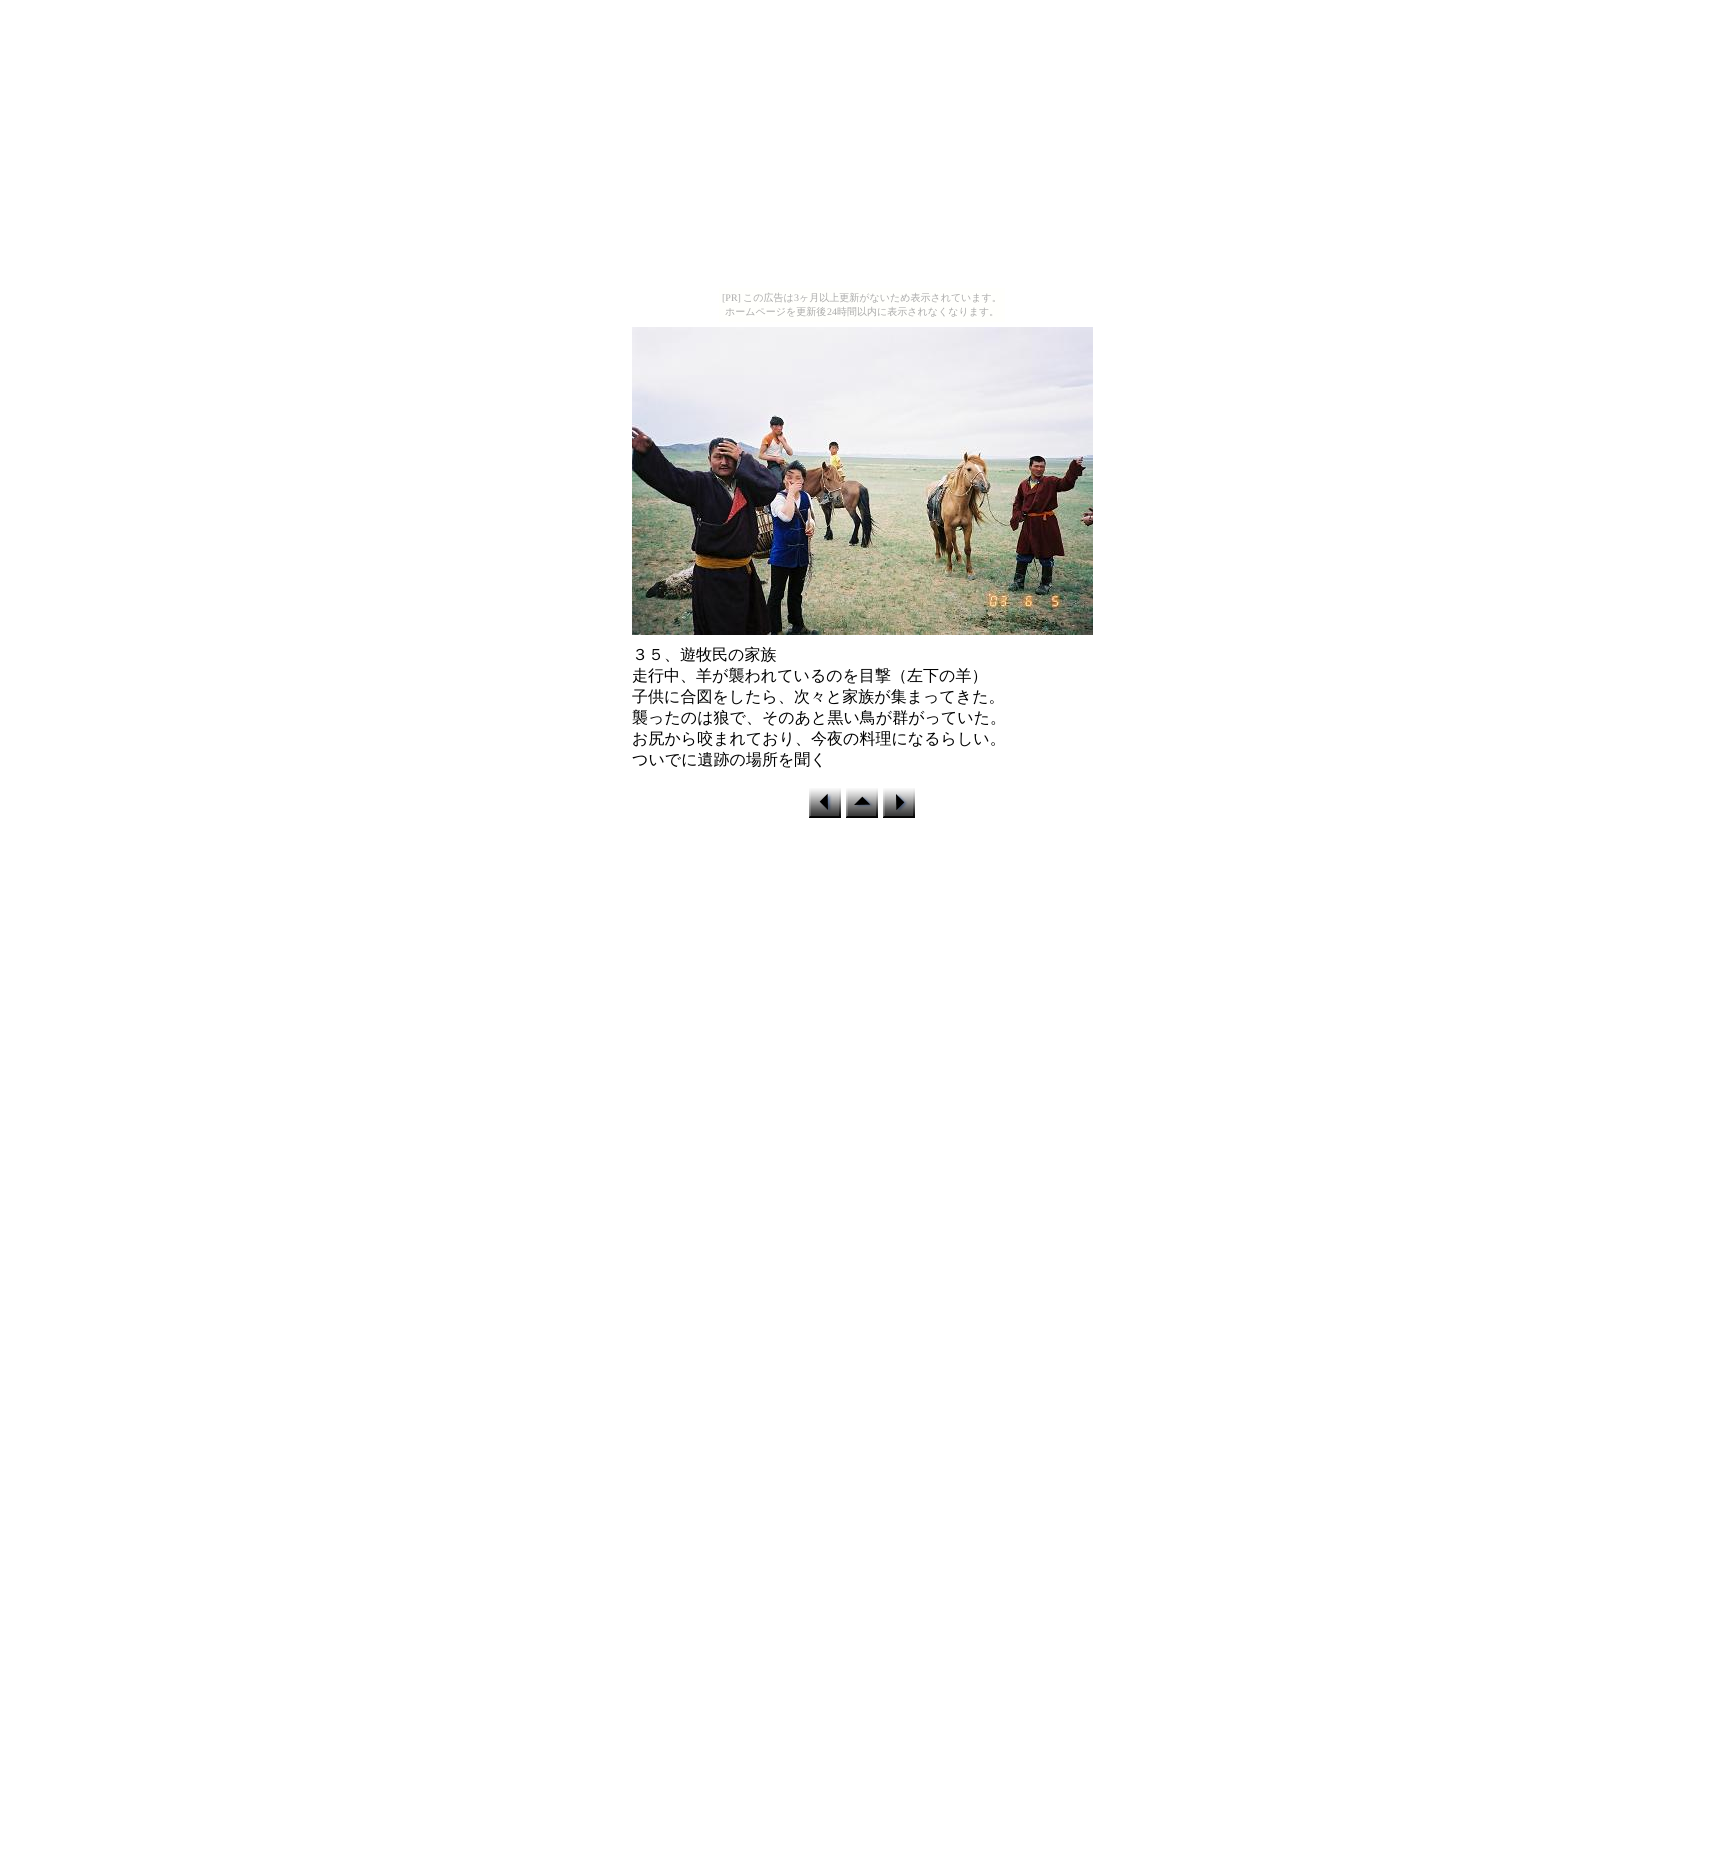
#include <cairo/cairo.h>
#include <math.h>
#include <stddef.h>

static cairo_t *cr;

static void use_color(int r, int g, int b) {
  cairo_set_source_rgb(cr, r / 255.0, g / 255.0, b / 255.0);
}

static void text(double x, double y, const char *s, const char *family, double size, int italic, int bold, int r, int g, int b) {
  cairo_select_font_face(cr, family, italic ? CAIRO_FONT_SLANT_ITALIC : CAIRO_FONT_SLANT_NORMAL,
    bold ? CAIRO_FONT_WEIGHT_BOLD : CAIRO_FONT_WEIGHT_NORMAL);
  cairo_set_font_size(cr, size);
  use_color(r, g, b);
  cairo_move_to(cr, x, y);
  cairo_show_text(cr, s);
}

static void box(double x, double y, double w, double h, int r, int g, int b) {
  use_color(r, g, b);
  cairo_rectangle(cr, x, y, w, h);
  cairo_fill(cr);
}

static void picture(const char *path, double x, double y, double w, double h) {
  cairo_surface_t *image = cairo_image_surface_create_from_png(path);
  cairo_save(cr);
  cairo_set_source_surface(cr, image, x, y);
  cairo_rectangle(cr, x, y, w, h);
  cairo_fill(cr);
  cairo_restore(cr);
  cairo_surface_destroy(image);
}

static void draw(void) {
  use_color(255, 255, 255);
  cairo_paint(cr);
  box(719, 288, 286, 34, 255, 255, 252);
  picture("img_01.png", 632, 327, 461, 308);
  picture("img_02.png", 809, 788, 32, 30);
  picture("img_03.png", 846, 788, 32, 30);
  picture("img_04.png", 883, 788, 32, 30);
  text(722, 301, "[PR]", "Liberation Serif", 10, 0, 0, 170, 170, 170);
  text(743, 301, "この広告は", "WenQuanYi Zen Hei Medium", 10, 0, 0, 170, 170, 170);
  text(794, 301, "3", "Liberation Serif", 10, 0, 0, 170, 170, 170);
  text(799, 301, "ヶ月以上更新がないため表示されています。", "WenQuanYi Zen Hei Medium", 10, 0, 0, 170, 170, 170);
  text(725, 315, "ホームページを更新後", "WenQuanYi Zen Hei Medium", 10, 0, 0, 170, 170, 170);
  text(827, 315, "24", "Liberation Serif", 10, 0, 0, 170, 170, 170);
  text(837, 315, "時間以内に表示されなくなります。", "WenQuanYi Zen Hei Medium", 10, 0, 0, 170, 170, 170);
  text(632, 660, "３５、遊牧民の家族", "WenQuanYi Zen Hei Medium", 16, 0, 0, 0, 0, 0);
  text(632, 681, "走行中、羊が襲われているのを目撃（左下の羊）", "WenQuanYi Zen Hei Medium", 16, 0, 0, 0, 0, 0);
  text(632, 702, "子供に合図をしたら、次々と家族が集まってきた。", "WenQuanYi Zen Hei Medium", 16, 0, 0, 0, 0, 0);
  text(632, 723, "襲ったのは狼で、そのあと黒い鳥が群がっていた。", "WenQuanYi Zen Hei Medium", 16, 0, 0, 0, 0, 0);
  text(632, 744, "お尻から咬まれており、今夜の料理になるらしい。", "WenQuanYi Zen Hei Medium", 16, 0, 0, 0, 0, 0);
  text(632, 765, "ついでに遺跡の場所を聞く", "WenQuanYi Zen Hei Medium", 16, 0, 0, 0, 0, 0);
}

int main(void) {
  cairo_surface_t *surface = cairo_image_surface_create(CAIRO_FORMAT_RGB24, 1724, 1860);
  cr = cairo_create(surface);
  cairo_font_options_t *options = cairo_font_options_create();
  cairo_font_options_set_hint_metrics(options, CAIRO_HINT_METRICS_OFF);
  cairo_font_options_set_hint_style(options, CAIRO_HINT_STYLE_NONE);
  cairo_set_font_options(cr, options);
  cairo_set_miter_limit(cr, 4);
  draw();
  cairo_surface_write_to_png(surface, "out.png");
  cairo_font_options_destroy(options);
  cairo_destroy(cr);
  cairo_surface_destroy(surface);
  return 0;
}
